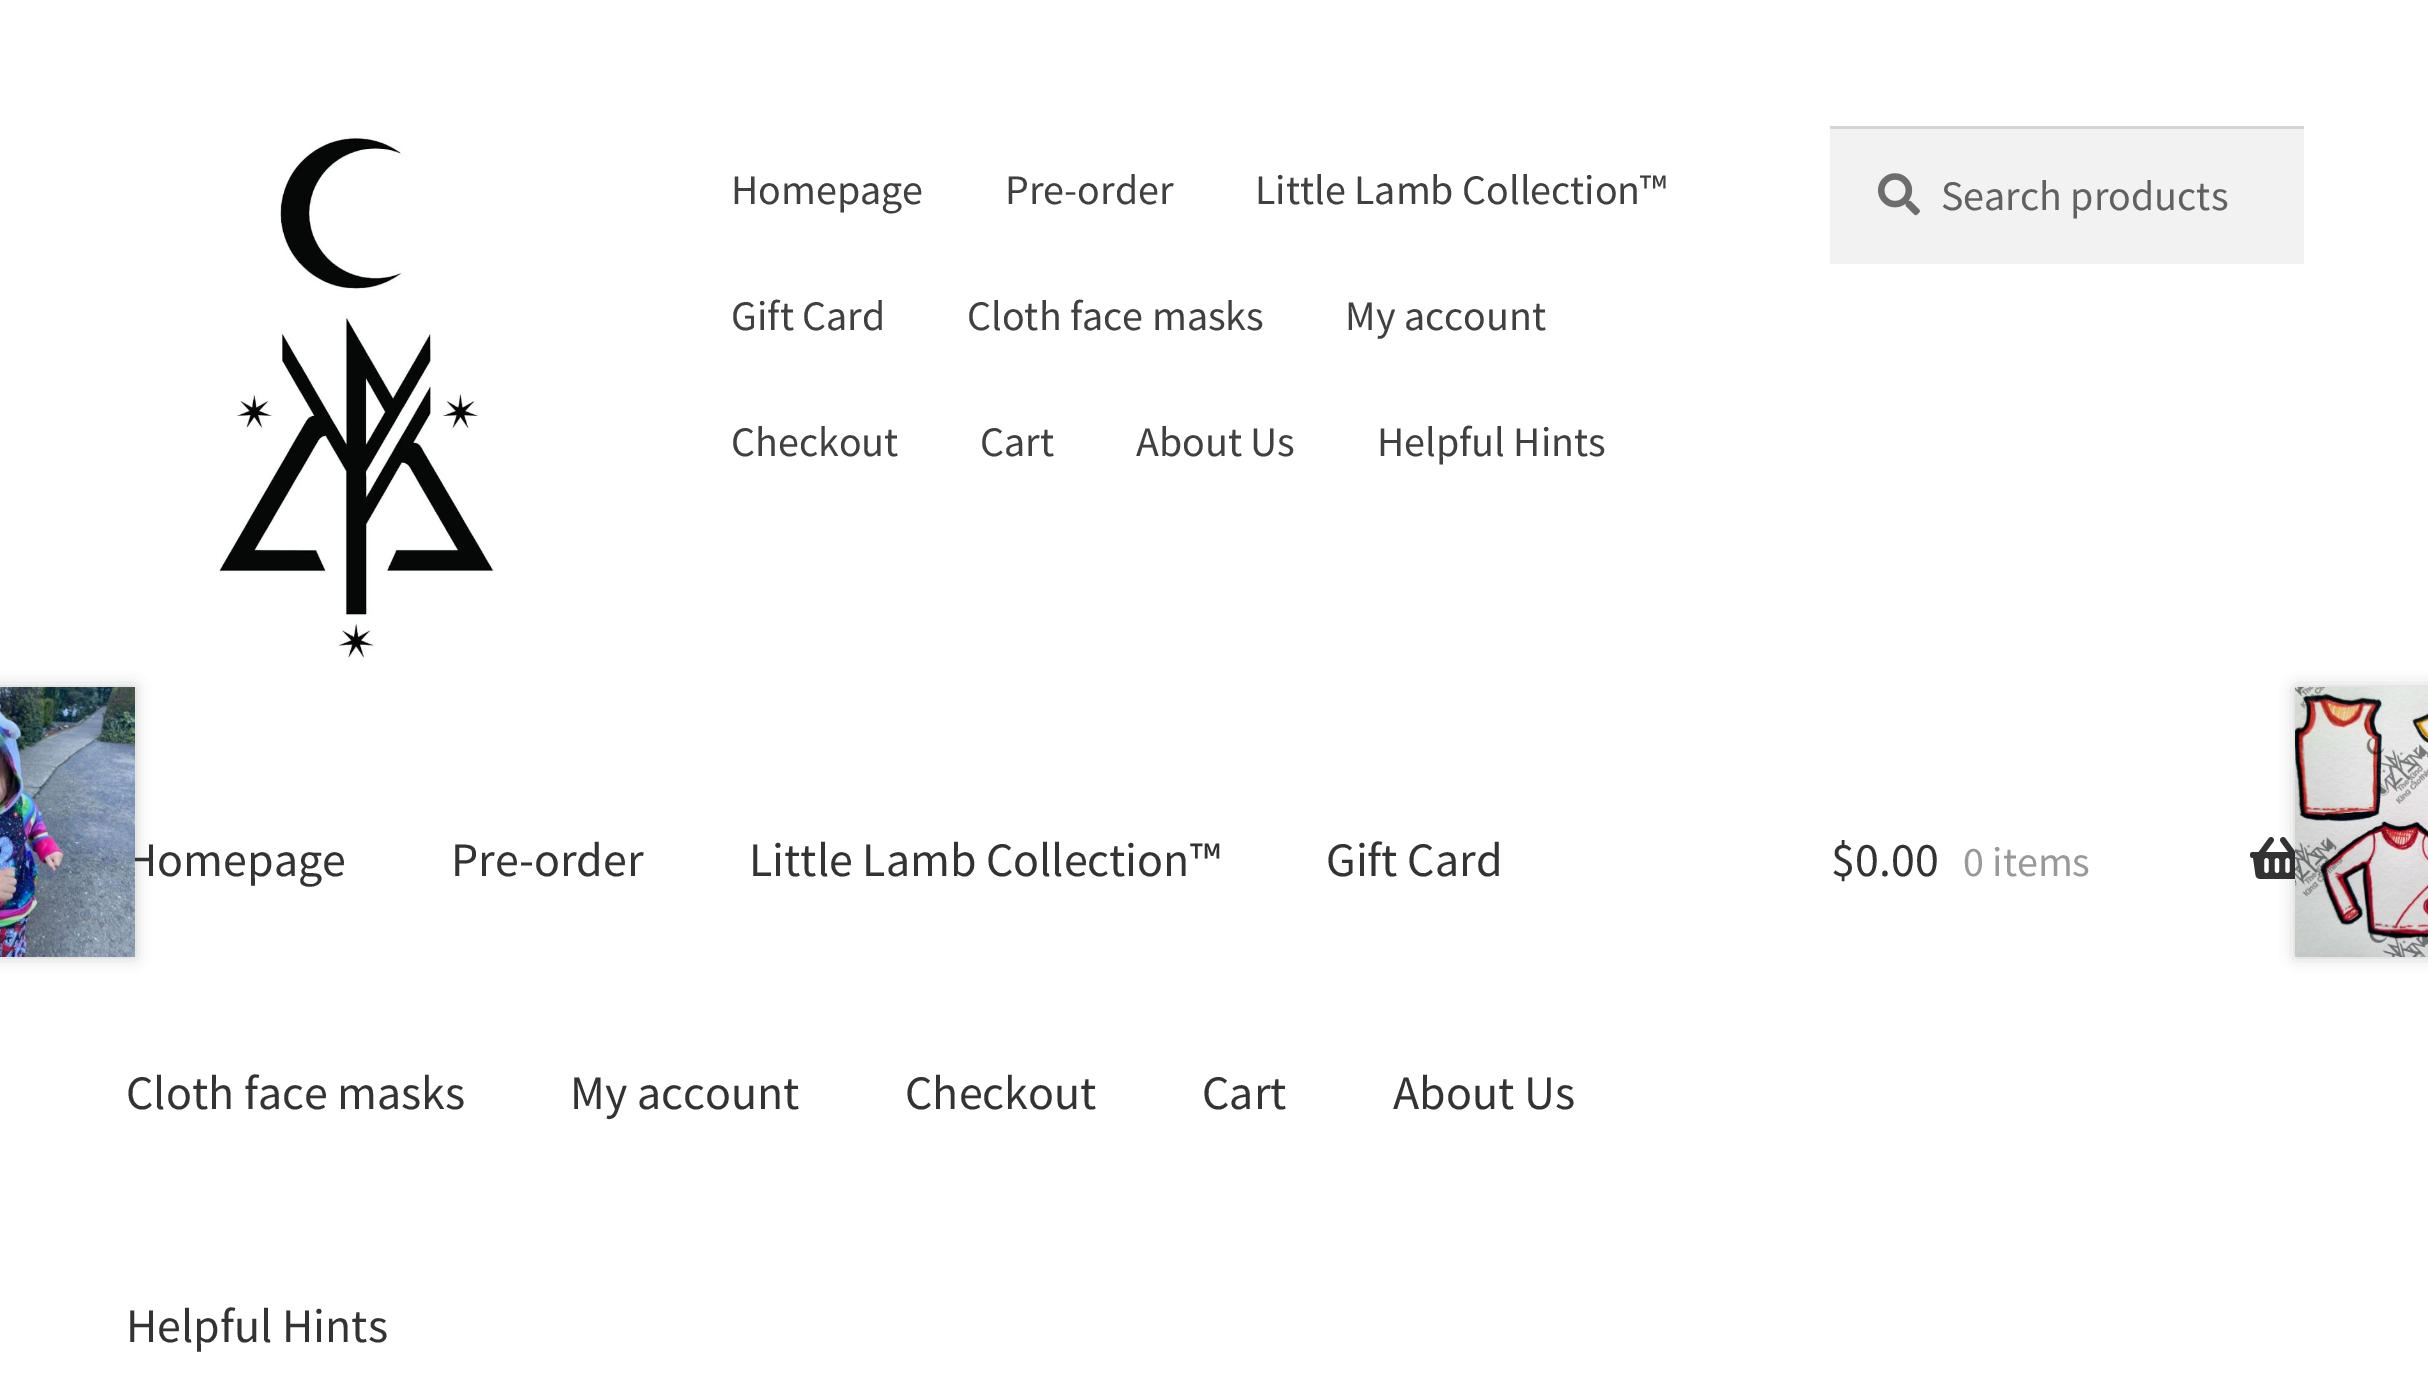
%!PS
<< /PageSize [2428 1374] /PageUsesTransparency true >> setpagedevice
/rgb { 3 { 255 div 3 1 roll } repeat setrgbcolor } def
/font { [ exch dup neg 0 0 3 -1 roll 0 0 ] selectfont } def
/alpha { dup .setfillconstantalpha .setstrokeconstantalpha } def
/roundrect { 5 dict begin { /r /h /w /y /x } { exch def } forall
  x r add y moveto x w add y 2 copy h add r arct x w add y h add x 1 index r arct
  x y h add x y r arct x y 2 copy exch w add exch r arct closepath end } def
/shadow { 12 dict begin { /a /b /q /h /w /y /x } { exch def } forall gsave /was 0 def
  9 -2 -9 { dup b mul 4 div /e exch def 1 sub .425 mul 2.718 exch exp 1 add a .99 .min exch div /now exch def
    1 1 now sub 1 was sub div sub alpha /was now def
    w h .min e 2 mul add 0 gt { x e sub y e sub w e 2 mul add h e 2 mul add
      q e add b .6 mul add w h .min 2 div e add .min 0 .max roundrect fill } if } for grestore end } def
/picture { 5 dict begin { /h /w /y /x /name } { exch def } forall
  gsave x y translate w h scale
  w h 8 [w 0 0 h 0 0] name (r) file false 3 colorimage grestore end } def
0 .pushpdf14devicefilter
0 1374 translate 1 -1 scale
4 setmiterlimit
255 255 255 rgb
0 0 2428 1374 rectfill
(img/1.rgb) 219 136 275 524 picture
242 242 242 rgb
1830 129 474 135 rectfill
(img/2.rgb) 1878 173 42 43 picture
212 212 212 rgb
1830 126 474 3 rectfill
(img/3.rgb) 2250 837 45 42 picture
0 0 0 rgb
-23 687 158 270 0 7.5 0.2 shadow
2295 687 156 270 0 7.5 0.2 shadow
(img/5.rgb) 2295 687 133 270 picture
/SourceSansPro-Regular 42 font
64 64 64 rgb
[
  [(Homepage) 731 204]
  [(Pre-order) 1005 204]
  [(Little Lamb Collection™) 1255 204]
  [(Gift Card) 731 330]
  [(Cloth face masks) 967 330]
  [(My account) 1345 330]
  [(Checkout) 731 456]
  [(Cart) 980 456]
  [(About Us) 1136 456]
  [(Helpful Hints) 1377 456]
] { aload pop moveto show } forall
97 97 97 rgb
1941 210 moveto (Search products) show
/SourceSansPro-Regular 48 font
51 51 51 rgb
[
  [(Homepage) 126 876]
  [(Pre-order) 451 876]
  [(Little Lamb Collection™) 749 876]
  [(Gift Card) 1326 876]
  [(Cloth face masks) 126 1109]
  [(My account) 570 1109]
  [(Checkout) 905 1109]
  [(Cart) 1202 1109]
  [(About Us) 1393 1109]
  [(Helpful Hints) 126 1342]
  [($0.00) 1831 876]
] { aload pop moveto show } forall
/SourceSansPro-Regular 42 font
153 153 153 rgb
1963 876 moveto (0 items) show
(img/4.rgb) 0 687 135 270 picture
.poppdf14devicefilter showpage
